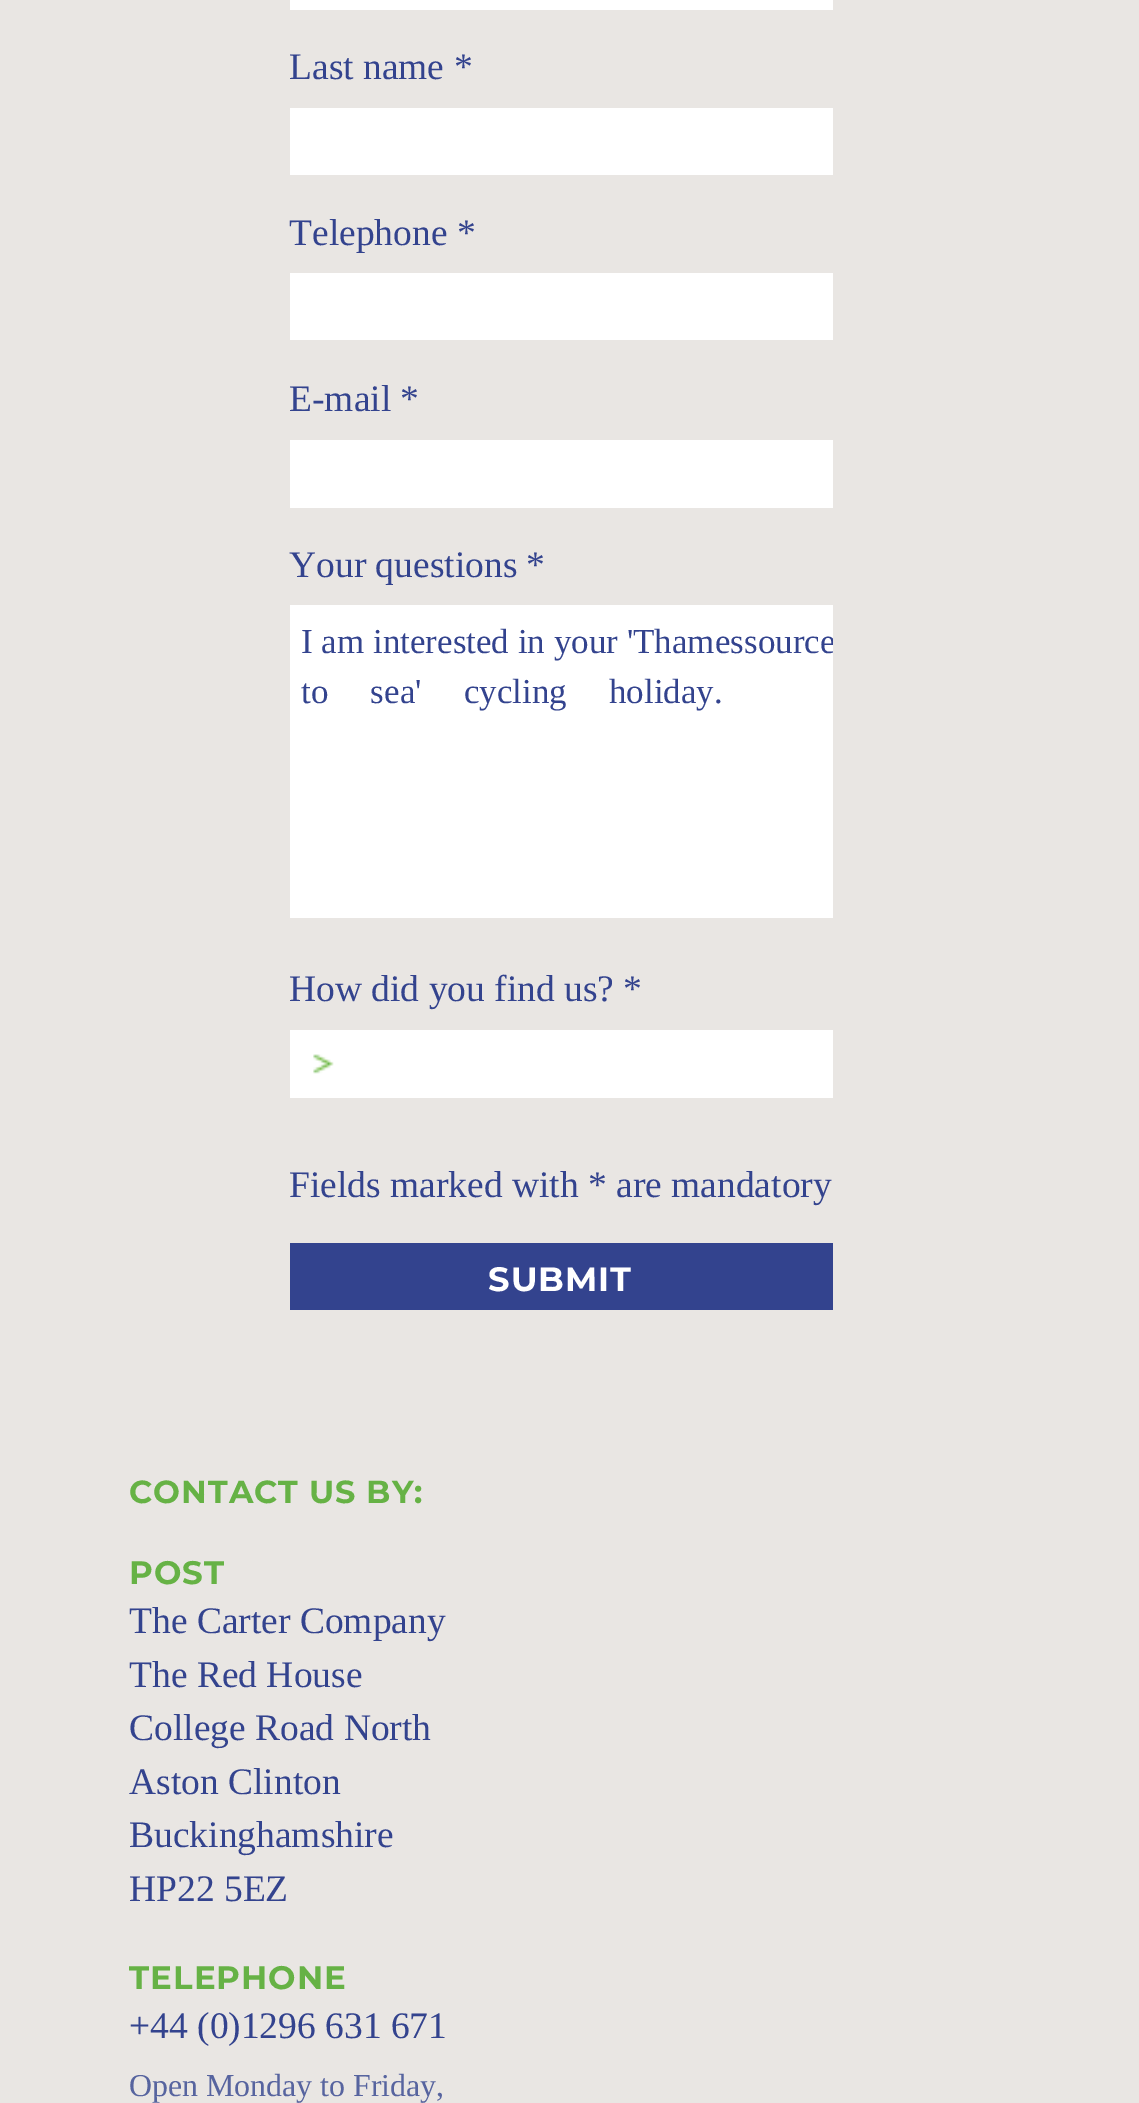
%!PS
<< /PageSize [1139 2103] >> setpagedevice
/rgb { 3 { 255 div 3 1 roll } repeat setrgbcolor } def
/font { [ exch dup neg 0 0 3 -1 roll 0 0 ] selectfont } def
/picture { 5 dict begin { /h /w /y /x /name } { exch def } forall
  gsave x y translate w h scale
  w h 8 [w 0 0 h 0 0] name (r) file false 3 colorimage grestore end } def
0 2103 translate 1 -1 scale
4 setmiterlimit
233 230 227 rgb
0 0 1139 2103 rectfill
[
  [290 0 543 10 255 255 255]
  [290 108 543 67 255 255 255]
  [290 273 543 67 255 255 255]
  [290 440 543 68 255 255 255]
  [290 605 543 313 255 255 255]
  [290 1030 543 68 255 255 255]
] { aload pop rgb rectfill } forall
(img/1.rgb) 313 1054 21 20 picture
51 67 142 rgb
290 1243 543 67 rectfill
/LiberationSerif-Regular 37.5 font
[
  [(Last name *) 289 79]
  [(Telephone *) 289 245]
  [(E-mail *) 289 411]
  [(Your questions *) 289 577]
] { aload pop moveto show } forall
/LiberationSerif-Regular 35 font
301 653 moveto (I am interested in your 'Thames) show
gsave
290 605 543 313 rectclip
744 653 moveto (source) show
grestore
301 703 moveto 33.5 0 32 (to sea' cycling holiday.) widthshow
/LiberationSerif-Regular 37.5 font
289 1001 moveto (How did you find us? *) show
289 1197 moveto (Fields marked with * are mandatory) show
/Montserrat-Bold 33.75 font
255 255 255 rgb
488 1291 moveto 1 0 (SUBMIT) ashow
/Montserrat-Bold 31.9 font
102 178 69 rgb
129 1503 moveto 1 0 (CONTACT US BY:) ashow
/Montserrat-Bold 32.5 font
129 1584 moveto 1 0 (POST) ashow
/LiberationSerif-Regular 37.5 font
51 67 142 rgb
[
  [(The Carter Company) 129 1633]
  [(The Red House) 129 1687]
  [(College Road North) 129 1740]
  [(Aston Clinton) 129 1794]
  [(Buckinghamshire) 129 1847]
  [(HP22 5EZ) 129 1901]
] { aload pop moveto show } forall
/Montserrat-Bold 32.5 font
102 178 69 rgb
129 1989 moveto 1 0 (TELEPHONE) ashow
/LiberationSerif-Regular 37.5 font
51 67 142 rgb
129 2038 moveto (+44 \(0\)1296 631 671) show
/LiberationSerif-Regular 31.9 font
87 100 159 rgb
129 2096 moveto (Open Monday to Friday,) show
showpage
